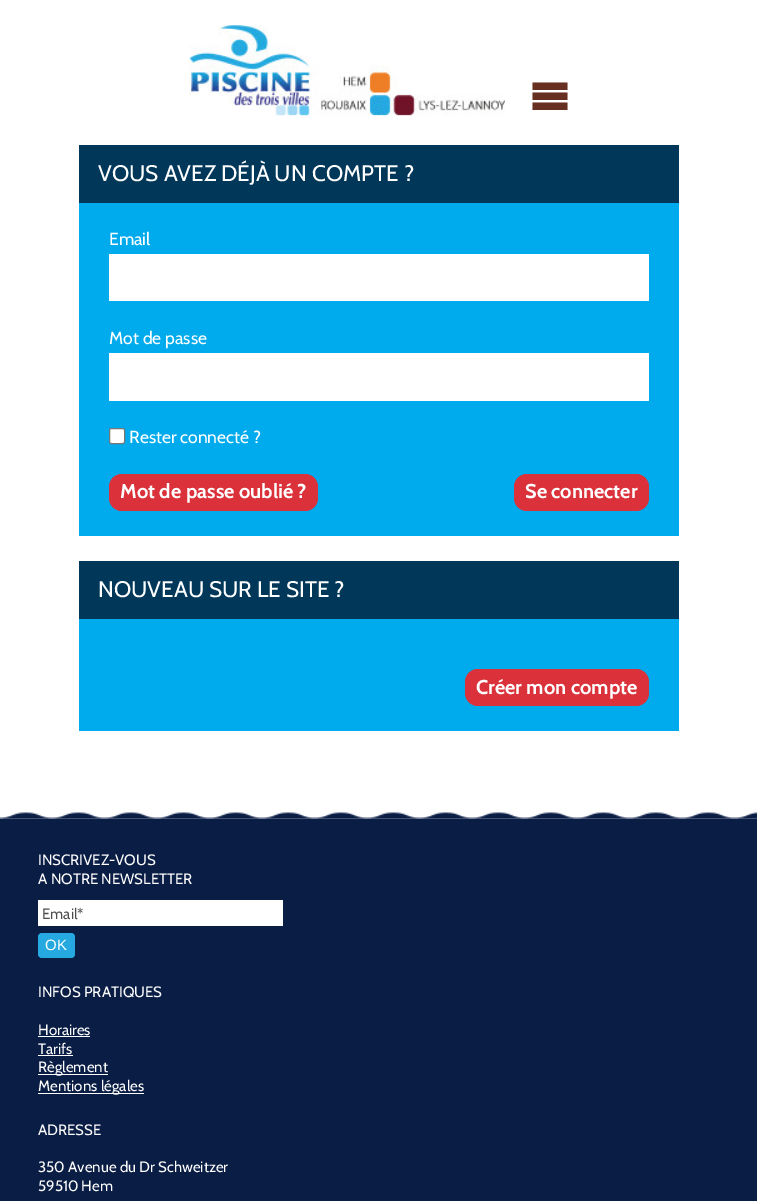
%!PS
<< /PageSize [757 1201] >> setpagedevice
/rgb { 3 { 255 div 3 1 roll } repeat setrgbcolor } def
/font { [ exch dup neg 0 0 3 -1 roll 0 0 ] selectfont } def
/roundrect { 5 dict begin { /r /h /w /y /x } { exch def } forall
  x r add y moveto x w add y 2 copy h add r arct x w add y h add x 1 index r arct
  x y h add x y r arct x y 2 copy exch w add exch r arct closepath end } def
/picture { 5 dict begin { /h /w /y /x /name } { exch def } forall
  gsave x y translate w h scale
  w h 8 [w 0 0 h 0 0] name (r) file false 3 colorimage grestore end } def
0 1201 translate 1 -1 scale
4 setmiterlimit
255 255 255 rgb
0 0 757 1201 rectfill
(img/1.rgb) 188 25 317 91 picture
103 47 33 rgb
532.5 82.5 moveto 567.5 82.5 lineto 567.5 90 lineto 532.5 90 lineto closepath 532.5 92.5 moveto 567.5 92.5 lineto 567.5 100 lineto 532.5 100 lineto closepath 532.5 102.5 moveto 567.5 102.5 lineto 567.5 110 lineto 532.5 110 lineto closepath fill
[
  [79 203 600 333 0 171 237]
  [79 145 600 58 1 55 89]
  [109 254 540 47 255 255 255]
  [109 353 540 48 255 255 255]
] { aload pop rgb rectfill } forall
109.5 428.5 15 15 2 roundrect gsave fill grestore
118 118 118 rgb
stroke
219 49 58 rgb
109 474 209 37 13 roundrect fill
514 474 135 37 13 roundrect fill
0 171 237 rgb
79 619 600 112 rectfill
1 55 89 rgb
79 561 600 58 rectfill
219 49 58 rgb
465 669 184 37 13 roundrect fill
(img/2.rgb) 0 812 757 7 picture
10 29 69 rgb
0 819 757 382 rectfill
255 255 255 rgb
38 900 245 26 rectfill
37 169 224 rgb
38 933 37 25 4 roundrect fill
[
  [38 1036 52 1 255 255 255]
  [38 1055 35 1 255 255 255]
  [38 1074 70 1 255 255 255]
  [38 1093 106 1 255 255 255]
] { aload pop rgb rectfill } forall
/Cabin-Regular 22.5 font
98 181 moveto (VOUS AVEZ DÉJÀ UN COMPTE ?) show
/Cabin-Regular 17.5 font
[
  [(Email) 109 245]
  [(Mot de passe) 109 344]
  [(Rester connecté ?) 129 443]
] { aload pop moveto show } forall
/Cabin-Bold 20 font
120 498 moveto (Mot de passe oublié ?) show
525 498 moveto (Se connecter) show
/Cabin-Regular 22.5 font
98 597 moveto (NOUVEAU SUR LE SITE ?) show
/Cabin-Bold 20 font
476 694 moveto (Créer mon compte) show
/Cabin-Regular 15 font
38 865 moveto (INSCRIVEZ-VOUS) show
38 884 moveto (A NOTRE NEWSLETTER) show
77 77 77 rgb
42 919 moveto (Email*) show
/LiberationSans-Regular 15 font
255 255 255 rgb
45 950 moveto (OK) show
/Cabin-Regular 15 font
[
  [(INFOS PRATIQUES) 38 997]
  [(Horaires) 38 1035]
  [(Tarifs) 38 1054]
  [(Règlement) 38 1072]
  [(Mentions légales) 38 1091]
  [(ADRESSE) 38 1135]
  [(350 Avenue du Dr Schweitzer) 38 1172]
  [(59510 Hem) 38 1191]
] { aload pop moveto show } forall
showpage
